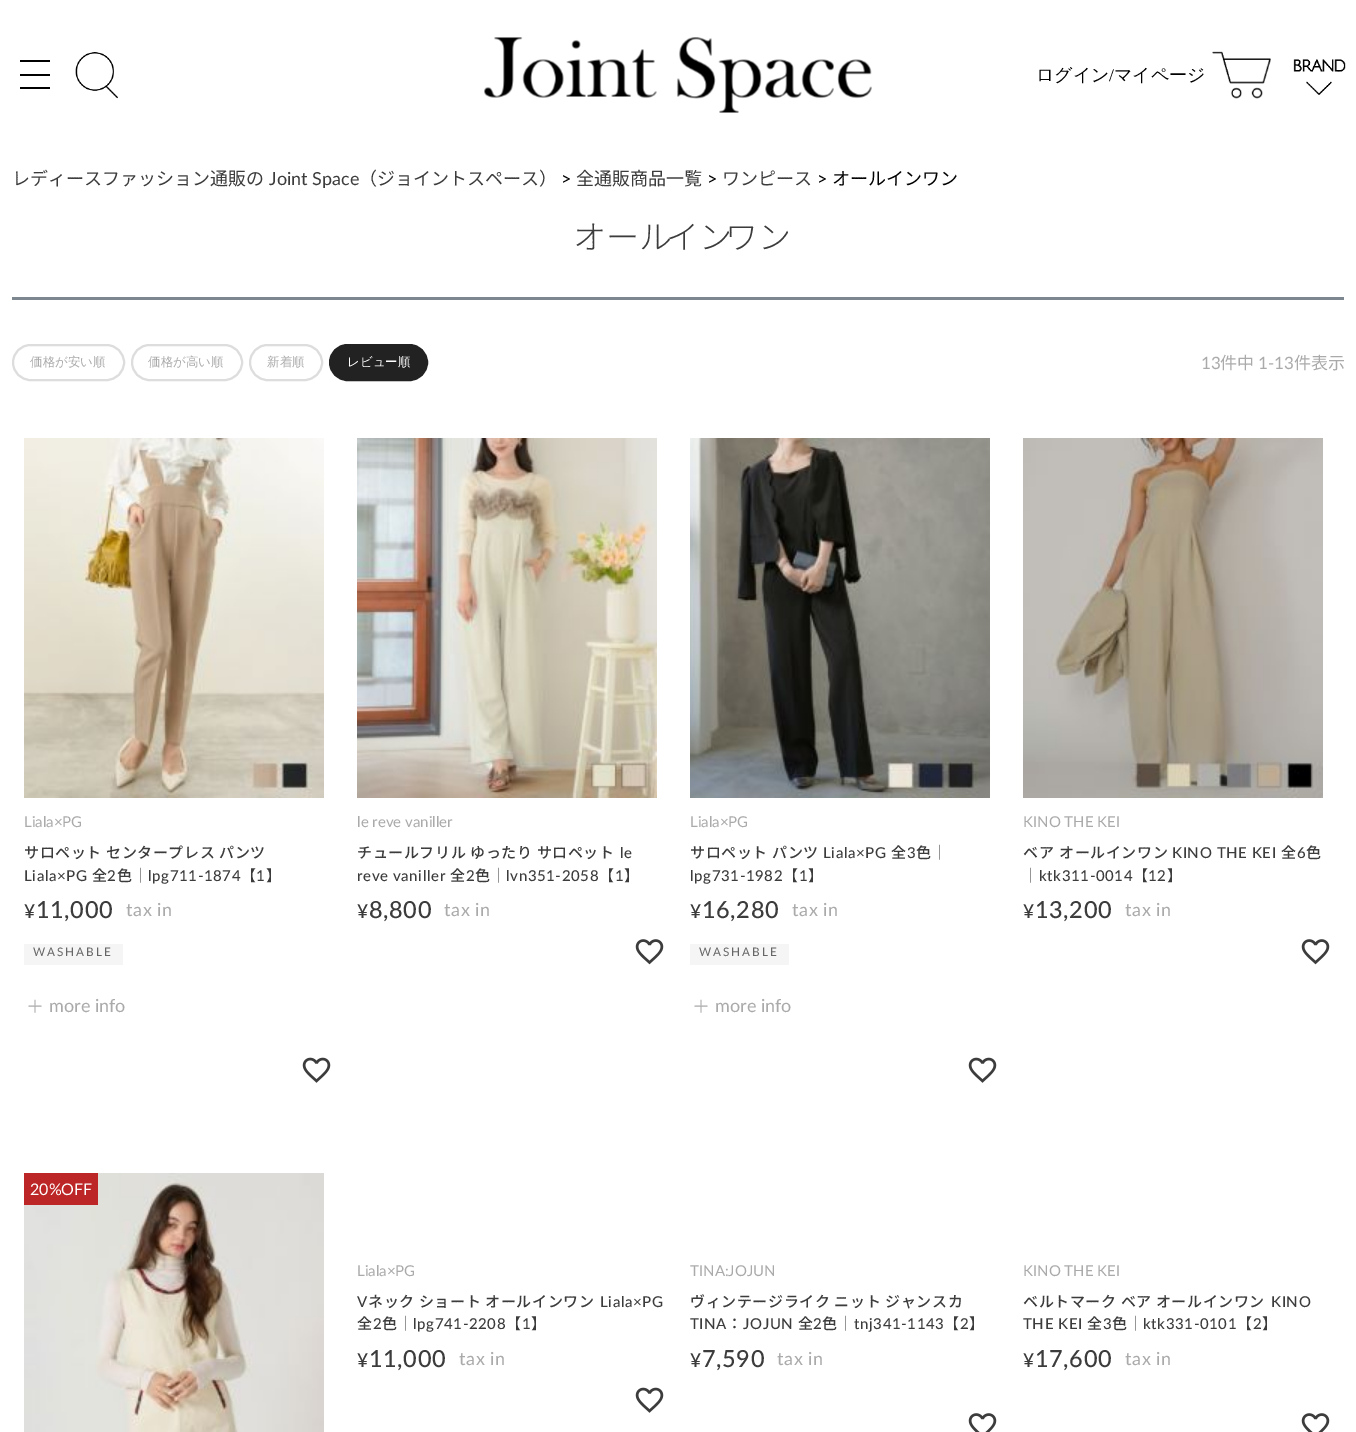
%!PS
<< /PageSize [1356 1432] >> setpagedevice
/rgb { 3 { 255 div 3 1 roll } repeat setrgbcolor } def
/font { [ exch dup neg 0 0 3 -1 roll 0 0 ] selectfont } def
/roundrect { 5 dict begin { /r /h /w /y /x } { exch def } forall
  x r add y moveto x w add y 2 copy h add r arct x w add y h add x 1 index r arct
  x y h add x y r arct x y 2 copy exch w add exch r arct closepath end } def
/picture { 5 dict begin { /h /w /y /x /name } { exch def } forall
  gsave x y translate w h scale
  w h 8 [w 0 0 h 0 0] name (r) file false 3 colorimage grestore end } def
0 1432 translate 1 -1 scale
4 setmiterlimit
255 255 255 rgb
0 0 1356 1432 rectfill
[
  [20 60 30 2 0 0 0]
  [20 74 30 2 0 0 0]
  [20 87 30 2 0 0 0]
] { aload pop rgb rectfill } forall
(img/1.rgb) 75 52 43 47 picture
(img/2.rgb) 484 37 388 76 picture
(img/3.rgb) 1212 51 59 48 picture
(img/4.rgb) 1293 59 53 36 picture
124 135 144 rgb
12 297 1332 3 rectfill
221 221 221 rgb
2 setlinewidth
13 345 111 35 17.5 roundrect stroke
132 345 110 35 17.5 roundrect stroke
250 345 72 35 17.5 roundrect stroke
34 34 34 rgb
330 345 97 35 17.5 roundrect gsave fill grestore
stroke
(img/5.rgb) 24 438 300 360 picture
245 245 245 rgb
24 944 99 21 rectfill
(img/6.rgb) 302 1057 29 26 picture
(img/7.rgb) 357 438 300 360 picture
(img/8.rgb) 635 939 29 26 picture
(img/9.rgb) 690 438 300 360 picture
690 944 99 21 rectfill
(img/6.rgb) 968 1057 29 26 picture
(img/10.rgb) 1023 438 300 360 picture
(img/8.rgb) 1301 939 29 26 picture
(img/11.rgb) 24 1173 300 259 picture
189 38 38 rgb
24 1173 74 32 rectfill
(img/6.rgb) 635 1387 29 26 picture
(img/12.rgb) 968 1413 29 19 picture
(img/12.rgb) 1301 1413 29 19 picture
/WenQuanYiZenHei-Medium 18 font
0 0 0 rgb
1036 81 moveto (ログイン) show
/LiberationSerif-Regular 18 font
1109 81 moveto (/) show
/WenQuanYiZenHei-Medium 18 font
1114 81 moveto (マイページ) show
/NotoSansJP-Regular 18 font
60 60 60 rgb
12 185 moveto (レディースファッション通販の) show
/Lato-Regular 18 font
269 185 moveto (Joint Space) show
/NotoSansJP-Regular 18 font
359 185 moveto (（ジョイントスペース）) show
/Lato-Regular 18 font
0 0 0 rgb
561 185 moveto (>) show
/NotoSansJP-Regular 18 font
60 60 60 rgb
576 185 moveto (全通販商品一覧) show
/Lato-Regular 18 font
0 0 0 rgb
707 185 moveto (>) show
/NotoSansJP-Regular 18 font
60 60 60 rgb
722 185 moveto (ワンピース) show
/Lato-Regular 18 font
0 0 0 rgb
817 185 moveto (>) show
/NotoSansJP-Regular 18 font
832 185 moveto (オールインワン) show
/NotoSansJP-Light 33 font
60 60 60 rgb
573 249 moveto (オール) show
666 249 moveto (イン) show
725 249 moveto (ワン) show
/WenQuanYiZenHei-Medium 12.5 font
170 170 170 rgb
[
  [(価格が安い順) 30 366]
  [(価格が高い順) 148 366]
  [(新着順) 267 366]
] { aload pop moveto show } forall
255 255 255 rgb
347 366 moveto (レビュー順) show
/Lato-Regular 17 font
170 170 170 rgb
1201 369 moveto (13) show
/NotoSansJP-Regular 17 font
1220 369 moveto (件中) show
/Lato-Regular 17 font
1258 369 moveto (1-13) show
/NotoSansJP-Regular 17 font
1294 369 moveto (件表示) show
/Lato-Regular 15 font
24 827 moveto (Liala×PG) show
/NotoSansJP-Medium 15 font
60 60 60 rgb
24 858 moveto 0.6 0 (サロペット センタープレス パンツ) ashow
/Lato-Medium 15 font
24 881 moveto 0.6 0 (Liala×PG) ashow
/NotoSansJP-Medium 15 font
92 881 moveto 0.6 0 (全) ashow
/Lato-Medium 15 font
107 881 moveto 0.6 0 (2) ashow
/NotoSansJP-Medium 15 font
117 881 moveto 0.6 0 (色｜) ashow
/Lato-Medium 15 font
148 881 moveto 0.6 0 (lpg711-1874) ashow
/NotoSansJP-Medium 15 font
241 881 moveto 0.6 0 (【) ashow
/Lato-Medium 15 font
256 881 moveto 0.6 0 (1) ashow
/NotoSansJP-Medium 15 font
266 881 moveto 0.6 0 (】) ashow
/Lato-Medium 19 font
24 918 moveto 0.6 0 (¥) ashow
/Lato-Medium 23.5 font
36 918 moveto 0.6 0 (11,000) ashow
/Lato-Regular 18 font
170 170 170 rgb
126 916 moveto 0.6 0 (tax in) ashow
/Lato-Regular 11.75 font
102 102 102 rgb
33 956 moveto 2 0 (WASHABLE) ashow
/NotoSansJP-Regular 18 font
170 170 170 rgb
26 1013 moveto (＋) show
/Lato-Regular 18 font
49 1012 moveto (more info) show
/Lato-Regular 15 font
357 827 moveto (le reve vaniller) show
/NotoSansJP-Medium 15 font
60 60 60 rgb
357 858 moveto 0.6 0 (チュールフリル ゆったり サロペット) ashow
/Lato-Medium 15 font
620 858 moveto 0.6 0 (le) ashow
357 881 moveto 0.6 0 (reve vaniller) ashow
/NotoSansJP-Medium 15 font
450 881 moveto 0.6 0 (全) ashow
/Lato-Medium 15 font
466 881 moveto 0.6 0 (2) ashow
/NotoSansJP-Medium 15 font
475 881 moveto 0.6 0 (色｜) ashow
/Lato-Medium 15 font
506 881 moveto 0.6 0 (lvn351-2058) ashow
/NotoSansJP-Medium 15 font
599 881 moveto 0.6 0 (【) ashow
/Lato-Medium 15 font
615 881 moveto 0.6 0 (1) ashow
/NotoSansJP-Medium 15 font
624 881 moveto 0.6 0 (】) ashow
/Lato-Medium 19 font
357 918 moveto 0.6 0 (¥) ashow
/Lato-Medium 23.5 font
369 918 moveto 0.6 0 (8,800) ashow
/Lato-Regular 18 font
170 170 170 rgb
444 916 moveto 0.6 0 (tax in) ashow
/Lato-Regular 15 font
690 827 moveto (Liala×PG) show
/NotoSansJP-Medium 15 font
60 60 60 rgb
690 858 moveto 0.6 0 (サロペット パンツ) ashow
/Lato-Medium 15 font
823 858 moveto 0.6 0 (Liala×PG) ashow
/NotoSansJP-Medium 15 font
891 858 moveto 0.6 0 (全) ashow
/Lato-Medium 15 font
907 858 moveto 0.6 0 (3) ashow
/NotoSansJP-Medium 15 font
916 858 moveto 0.6 0 (色｜) ashow
/Lato-Medium 15 font
690 881 moveto 0.6 0 (lpg731-1982) ashow
/NotoSansJP-Medium 15 font
783 881 moveto 0.6 0 (【) ashow
/Lato-Medium 15 font
799 881 moveto 0.6 0 (1) ashow
/NotoSansJP-Medium 15 font
808 881 moveto 0.6 0 (】) ashow
/Lato-Medium 19 font
690 918 moveto 0.6 0 (¥) ashow
/Lato-Medium 23.5 font
702 918 moveto 0.6 0 (16,280) ashow
/Lato-Regular 18 font
170 170 170 rgb
792 916 moveto 0.6 0 (tax in) ashow
/Lato-Regular 11.75 font
102 102 102 rgb
699 956 moveto 2 0 (WASHABLE) ashow
/NotoSansJP-Regular 18 font
170 170 170 rgb
692 1013 moveto (＋) show
/Lato-Regular 18 font
715 1012 moveto (more info) show
/Lato-Regular 15 font
1023 827 moveto (KINO THE KEI) show
/NotoSansJP-Medium 15 font
60 60 60 rgb
1023 858 moveto 0.6 0 (ベア) ashow
1059 858 moveto 0.6 0 (オールインワン) ashow
/Lato-Medium 15 font
1172 858 moveto 0.6 0 (KINO THE KEI) ashow
/NotoSansJP-Medium 15 font
1281 858 moveto 0.6 0 (全) ashow
/Lato-Medium 15 font
1297 858 moveto 0.6 0 (6) ashow
/NotoSansJP-Medium 15 font
1306 858 moveto 0.6 0 (色) ashow
1023 881 moveto 0.6 0 (｜) ashow
/Lato-Medium 15 font
1039 881 moveto 0.6 0 (ktk311-0014) ashow
/NotoSansJP-Medium 15 font
1133 881 moveto 0.6 0 (【) ashow
/Lato-Medium 15 font
1148 881 moveto 0.6 0 (12) ashow
/NotoSansJP-Medium 15 font
1167 881 moveto 0.6 0 (】) ashow
/Lato-Medium 19 font
1023 918 moveto 0.6 0 (¥) ashow
/Lato-Medium 23.5 font
1035 918 moveto 0.6 0 (13,200) ashow
/Lato-Regular 18 font
170 170 170 rgb
1125 916 moveto 0.6 0 (tax in) ashow
/Lato-Regular 16 font
255 255 255 rgb
30 1195 moveto (20%OFF) show
/Lato-Regular 15 font
170 170 170 rgb
357 1276 moveto (Liala×PG) show
/Lato-Medium 15 font
60 60 60 rgb
357 1307 moveto 0.6 0 (V) ashow
/NotoSansJP-Medium 15 font
368 1307 moveto 0.6 0 (ネック ショート オールインワン) ashow
/Lato-Medium 15 font
600 1307 moveto 0.6 0 (Liala×PG) ashow
/NotoSansJP-Medium 15 font
357 1329 moveto 0.6 0 (全) ashow
/Lato-Medium 15 font
373 1329 moveto 0.6 0 (2) ashow
/NotoSansJP-Medium 15 font
382 1329 moveto 0.6 0 (色｜) ashow
/Lato-Medium 15 font
413 1329 moveto 0.6 0 (lpg741-2208) ashow
/NotoSansJP-Medium 15 font
506 1329 moveto 0.6 0 (【) ashow
/Lato-Medium 15 font
522 1329 moveto 0.6 0 (1) ashow
/NotoSansJP-Medium 15 font
531 1329 moveto 0.6 0 (】) ashow
/Lato-Medium 19 font
357 1367 moveto 0.6 0 (¥) ashow
/Lato-Medium 23.5 font
369 1367 moveto 0.6 0 (11,000) ashow
/Lato-Regular 18 font
170 170 170 rgb
459 1365 moveto 0.6 0 (tax in) ashow
/Lato-Regular 15 font
690 1276 moveto (TINA:JOJUN) show
/NotoSansJP-Medium 15 font
60 60 60 rgb
690 1307 moveto 0.6 0 (ヴィンテージライク ニット ジャンスカ) ashow
/Lato-Medium 15 font
690 1329 moveto 0.6 0 (TINA) ashow
/NotoSansJP-Medium 15 font
727 1329 moveto 0.6 0 (：) ashow
/Lato-Medium 15 font
743 1329 moveto 0.6 0 (JOJUN) ashow
/NotoSansJP-Medium 15 font
798 1329 moveto 0.6 0 (全) ashow
/Lato-Medium 15 font
813 1329 moveto 0.6 0 (2) ashow
/NotoSansJP-Medium 15 font
822 1329 moveto 0.6 0 (色｜) ashow
/Lato-Medium 15 font
854 1329 moveto 0.6 0 (tnj341-1143) ashow
/NotoSansJP-Medium 15 font
944 1329 moveto 0.6 0 (【) ashow
/Lato-Medium 15 font
960 1329 moveto 0.6 0 (2) ashow
/NotoSansJP-Medium 15 font
969 1329 moveto 0.6 0 (】) ashow
/Lato-Medium 19 font
690 1367 moveto 0.6 0 (¥) ashow
/Lato-Medium 23.5 font
702 1367 moveto 0.6 0 (7,590) ashow
/Lato-Regular 18 font
170 170 170 rgb
777 1365 moveto 0.6 0 (tax in) ashow
/Lato-Regular 15 font
1023 1276 moveto (KINO THE KEI) show
/NotoSansJP-Medium 15 font
60 60 60 rgb
1023 1307 moveto 0.6 0 (ベルトマーク ベア オールインワン) ashow
/Lato-Medium 15 font
1271 1307 moveto 0.6 0 (KINO) ashow
1023 1329 moveto 0.6 0 (THE KEI) ashow
/NotoSansJP-Medium 15 font
1087 1329 moveto 0.6 0 (全) ashow
/Lato-Medium 15 font
1103 1329 moveto 0.6 0 (3) ashow
/NotoSansJP-Medium 15 font
1112 1329 moveto 0.6 0 (色｜) ashow
/Lato-Medium 15 font
1143 1329 moveto 0.6 0 (ktk331-0101) ashow
/NotoSansJP-Medium 15 font
1237 1329 moveto 0.6 0 (【) ashow
/Lato-Medium 15 font
1253 1329 moveto 0.6 0 (2) ashow
/NotoSansJP-Medium 15 font
1262 1329 moveto 0.6 0 (】) ashow
/Lato-Medium 19 font
1023 1367 moveto 0.6 0 (¥) ashow
/Lato-Medium 23.5 font
1035 1367 moveto 0.6 0 (17,600) ashow
/Lato-Regular 18 font
170 170 170 rgb
1125 1365 moveto 0.6 0 (tax in) ashow
showpage
